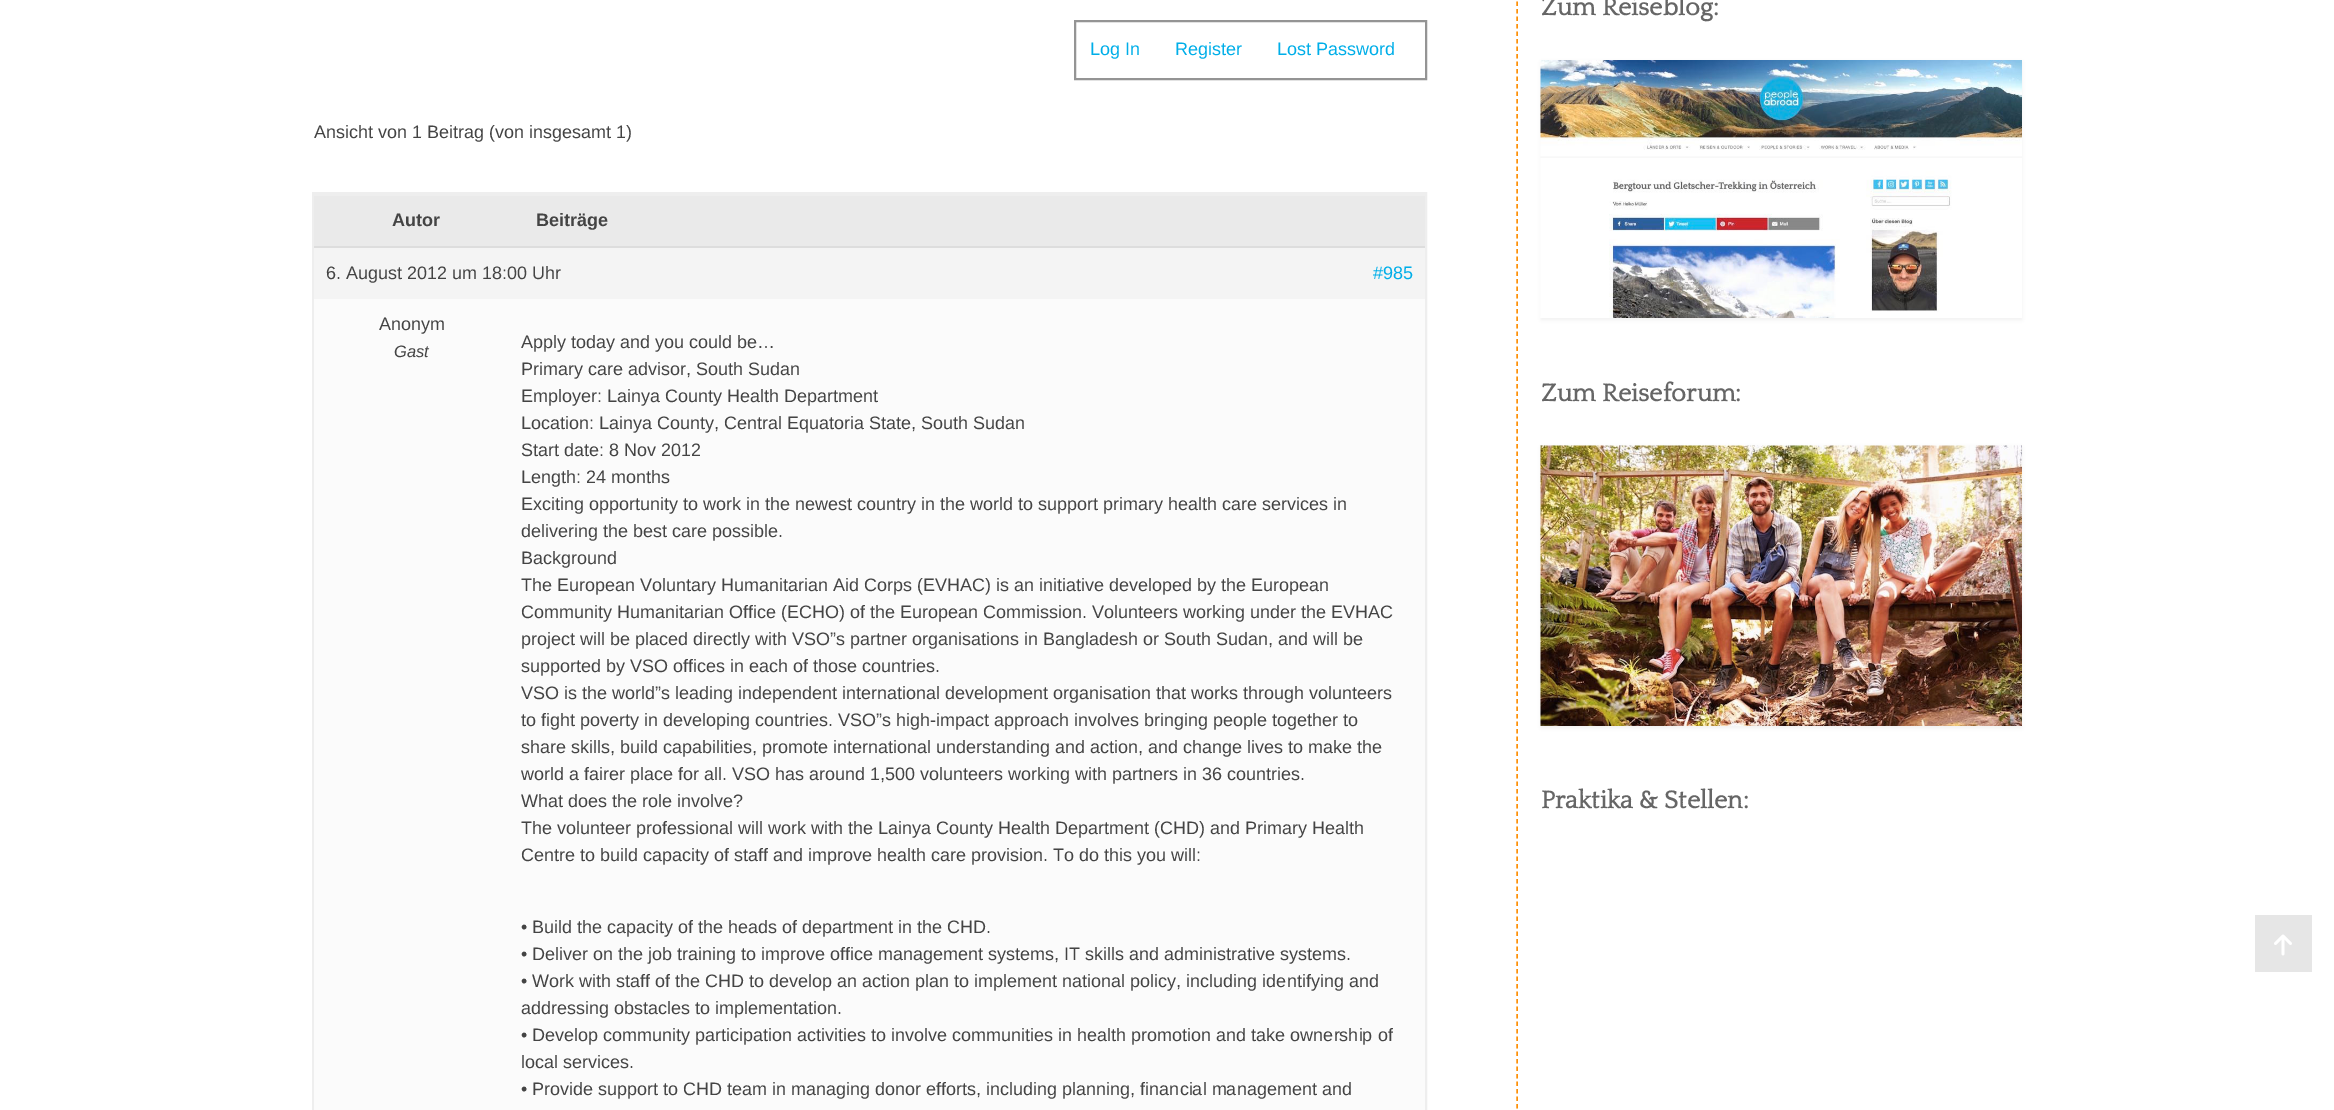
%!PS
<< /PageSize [2334 1110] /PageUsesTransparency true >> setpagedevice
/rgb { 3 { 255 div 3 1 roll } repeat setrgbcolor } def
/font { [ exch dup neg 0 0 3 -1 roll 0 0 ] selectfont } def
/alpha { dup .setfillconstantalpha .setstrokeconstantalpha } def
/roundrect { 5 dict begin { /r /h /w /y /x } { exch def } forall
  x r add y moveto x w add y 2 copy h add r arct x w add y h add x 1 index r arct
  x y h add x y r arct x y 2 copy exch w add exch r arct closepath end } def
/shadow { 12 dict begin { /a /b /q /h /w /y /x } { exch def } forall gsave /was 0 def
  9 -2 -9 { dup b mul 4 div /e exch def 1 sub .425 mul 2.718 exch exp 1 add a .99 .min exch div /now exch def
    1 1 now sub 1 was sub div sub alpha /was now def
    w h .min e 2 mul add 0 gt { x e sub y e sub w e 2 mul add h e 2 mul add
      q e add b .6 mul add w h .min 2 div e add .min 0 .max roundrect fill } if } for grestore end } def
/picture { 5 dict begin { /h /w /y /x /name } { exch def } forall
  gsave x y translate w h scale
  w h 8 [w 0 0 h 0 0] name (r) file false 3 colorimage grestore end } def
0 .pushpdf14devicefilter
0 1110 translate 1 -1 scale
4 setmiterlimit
255 255 255 rgb
0 0 2334 1110 rectfill
253 144 9 rgb
1.5 setlinewidth
[4.5 3] 0 setdash
1517 -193.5 moveto 1517 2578.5 lineto stroke
148 148 148 rgb
2 setlinewidth
[] 0 setdash
1075 21 351 58 rectstroke
238 238 238 rgb
313 193 1113 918 rectstroke
[
  [314 196 1111 50 234 234 234]
  [314 194 1111 2 238 238 238]
  [314 248 1111 51 244 244 244]
  [314 246 1111 2 221 221 221]
  [314 299 1111 811 251 251 251]
] { aload pop rgb rectfill } forall
0 0 0 rgb
1541 62 481 258 0 2 0.06 shadow
(img/1.rgb) 1540 60 482 258 picture
1541 447 481 281 0 2 0.06 shadow
(img/2.rgb) 1540 445 482 281 picture
230 230 230 rgb
2255 915 57 57 rectfill
(img/3.rgb) 2274 934 18 22 picture
/LiberationSans-Regular 18 font
0 174 232 rgb
[
  [(Log In) 1090 55]
  [(Register) 1175 55]
  [(Lost Password) 1277 55]
] { aload pop moveto show } forall
68 68 68 rgb
314 138 moveto (Ansicht von 1 Beitrag \(von insgesamt 1\)) show
/LiberationSans-Bold 18 font
392 226 moveto (Autor) show
536 226 moveto (Beiträge) show
/LiberationSans-Regular 18 font
326 279 moveto (6. August 2012 um 18:00 Uhr) show
0 174 232 rgb
1373 279 moveto (#985) show
68 68 68 rgb
379 330 moveto (Anonym) show
/LiberationSans-Italic 16.5 font
394 357 moveto (Gast) show
/LiberationSans-Regular 18 font
[
  [(Apply today and you could be…) 521 348]
  [(Primary care advisor, South Sudan) 521 375]
  [(Employer: Lainya County Health Department) 521 402]
  [(Location: Lainya County, Central Equatoria State, South Sudan) 521 429]
  [(Start date: 8 Nov 2012) 521 456]
  [(Length: 24 months) 521 483]
  [(Exciting opportunity to work in the newest country in the world to support primary health care services in) 521 510]
  [(delivering the best care possible.) 521 537]
  [(Background) 521 564]
  [(The European Voluntary Humanitarian Aid Corps \(EVHAC\) is an initiative developed by the European) 521 591]
  [(Community Humanitarian Office \(ECHO\) of the European Commission. Volunteers working under the EVHAC) 521 618]
  [(project will be placed directly with VSO”s partner organisations in Bangladesh or South Sudan, and will be) 521 645]
  [(supported by VSO offices in each of those countries.) 521 672]
  [(VSO is the world”s leading independent international development organisation that works through volunteers) 521 699]
  [(to fight poverty in developing countries. VSO”s high-impact approach involves bringing people together to) 521 726]
  [(share skills, build capabilities, promote international understanding and action, and change lives to make the) 521 753]
  [(world a fairer place for all. VSO has around 1,500 volunteers working with partners in 36 countries.) 521 780]
  [(What does the role involve?) 521 807]
  [(The volunteer professional will work with the Lainya County Health Department \(CHD\) and Primary Health) 521 834]
  [(Centre to build capacity of staff and improve health care provision. To do this you will:) 521 861]
  [(• Build the capacity of the heads of department in the CHD.) 521 933]
  [(• Deliver on the job training to improve office management systems, IT skills and administrative systems.) 521 960]
  [(• Work with staff of the CHD to develop an action plan to implement national policy, including identifying and) 521 987]
  [(addressing obstacles to implementation.) 521 1014]
  [(• Develop community participation activities to involve communities in health promotion and take ownership of) 521 1041]
  [(local services.) 521 1068]
  [(• Provide support to CHD team in managing donor efforts, including planning, financial management and) 521 1095]
] { aload pop moveto show } forall
/Quattrocento-Bold 25.5 font
102 102 102 rgb
[
  [(Zum Reiseblog:) 1541 15]
  [(Zum Reiseforum:) 1541 401]
  [(Praktika & Stellen:) 1541 808]
] { aload pop moveto show } forall
.poppdf14devicefilter showpage
